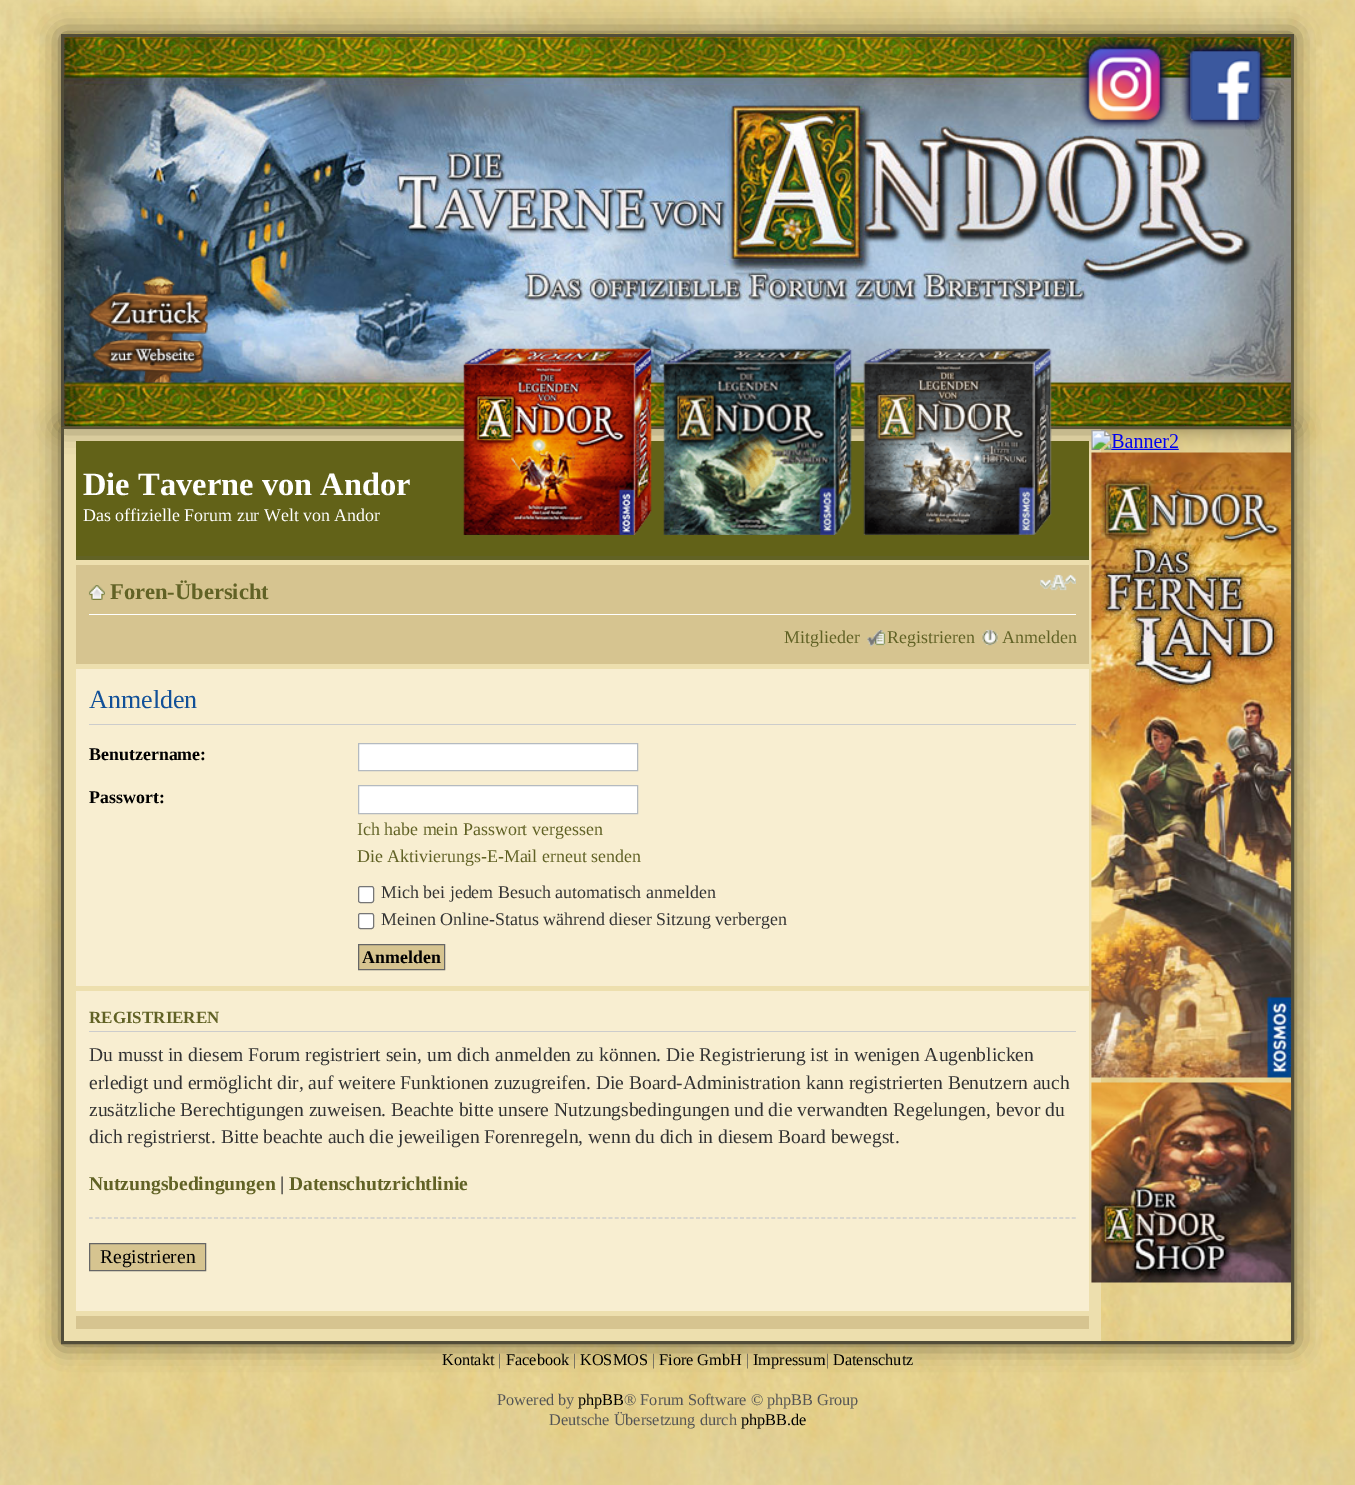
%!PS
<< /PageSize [1355 1485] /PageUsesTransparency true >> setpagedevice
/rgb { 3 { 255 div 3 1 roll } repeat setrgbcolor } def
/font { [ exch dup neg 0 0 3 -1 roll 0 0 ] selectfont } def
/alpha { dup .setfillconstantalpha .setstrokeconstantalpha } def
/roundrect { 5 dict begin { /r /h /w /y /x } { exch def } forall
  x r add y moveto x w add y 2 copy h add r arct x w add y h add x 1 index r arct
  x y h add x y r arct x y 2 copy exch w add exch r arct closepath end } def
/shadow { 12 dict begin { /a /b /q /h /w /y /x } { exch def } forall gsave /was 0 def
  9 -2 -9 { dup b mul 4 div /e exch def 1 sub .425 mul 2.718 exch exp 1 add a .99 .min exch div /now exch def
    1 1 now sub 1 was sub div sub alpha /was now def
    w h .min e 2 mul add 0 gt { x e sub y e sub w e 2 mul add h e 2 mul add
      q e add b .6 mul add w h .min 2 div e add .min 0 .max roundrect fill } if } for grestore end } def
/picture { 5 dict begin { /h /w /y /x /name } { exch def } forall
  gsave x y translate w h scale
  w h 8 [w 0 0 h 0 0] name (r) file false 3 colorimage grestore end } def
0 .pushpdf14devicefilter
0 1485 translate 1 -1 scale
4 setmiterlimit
255 255 255 rgb
0 0 1355 1485 rectfill
(img/1.rgb) 0 1470 1355 15 picture
(img/2.rgb) 0 0 1355 1470 picture
gsave
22 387 moveto 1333 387 lineto 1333 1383 lineto 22 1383 lineto closepath 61 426 moveto 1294 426 lineto 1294 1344 lineto 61 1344 lineto closepath eoclip newpath
105 95 63 rgb
61 426 1233 918 0 12.5 1 shadow
grestore
82 77 57 rgb
3 setlinewidth
62.5 427.5 1230 915 rectstroke
237 223 174 rgb
64 429 1037 912 rectfill
105 95 63 rgb
61 34 1233 392 0 12.5 1 shadow
(img/3.rgb) 61 33 1233 394 picture
[
  [61 34 1233 3 82 77 57]
  [1291 34 3 392 82 77 57]
  [61 34 3 392 82 77 57]
] { aload pop rgb rectfill } forall
(img/4.rgb) 1078 39 92 91 picture
(img/5.rgb) 1180 41 90 89 picture
(img/6.rgb) 88 276 121 107 picture
98 98 24 rgb
76 441 1013 115 rectfill
(img/7.rgb) 463 348 189 187 picture
(img/8.rgb) 663 348 189 187 picture
(img/9.rgb) 863 348 189 187 picture
(img/10.rgb) 1091 430 201 853 picture
[
  [76 556 1013 4 97 98 37]
  [76 565 1013 99 214 196 144]
  [89 614 987 1 255 255 255]
] { aload pop rgb rectfill } forall
(img/11.rgb) 88 585 17 15 picture
(img/12.rgb) 1040 574 36 17 picture
(img/13.rgb) 867 630 19 17 picture
(img/14.rgb) 982 629 16 17 picture
248 238 209 rgb
76 669 1013 317 rectfill
204 204 204 rgb
89 724 987 1 rectfill
255 255 255 rgb
358.5 743.5 moveto 637.5 743.5 lineto 637.5 770.5 lineto 358.5 770.5 lineto closepath gsave fill grestore
180 186 192 rgb
1 setlinewidth
stroke
255 255 255 rgb
358.5 785.5 moveto 637.5 785.5 lineto 637.5 813.5 lineto 358.5 813.5 lineto closepath gsave fill grestore
180 186 192 rgb
stroke
255 255 255 rgb
358.5 886.5 15 16 2 roundrect gsave fill grestore
118 118 118 rgb
stroke
255 255 255 rgb
358.5 913.5 15 15 2 roundrect gsave fill grestore
118 118 118 rgb
stroke
214 196 144 rgb
358.5 944.5 moveto 444.5 944.5 lineto 444.5 969.5 lineto 358.5 969.5 lineto closepath gsave fill grestore
102 102 102 rgb
stroke
248 238 209 rgb
76 991 1013 320 rectfill
204 204 204 rgb
89 1031 987 1 rectfill
1.2 setlinewidth
[3.75 2.51] 0 setdash
89 1218 moveto 1076 1218 lineto stroke
214 196 144 rgb
89.5 1243.5 moveto 205.5 1243.5 lineto 205.5 1270.5 lineto 89.5 1270.5 lineto closepath gsave fill grestore
102 102 102 rgb
1 setlinewidth
[] 0 setdash
stroke
214 196 144 rgb
76 1316 1013 13 rectfill
/LiberationSerif-Bold 32.5 font
255 255 255 rgb
83 495 moveto (Die Taverne von Andor) show
/LiberationSerif-Regular 17.9 font
83 521 moveto (Das offizielle Forum zur Welt von Andor) show
/LiberationSerif-Bold 22.5 font
97 98 37 rgb
110 599 moveto (Foren-Übersicht) show
/LiberationSerif-Regular 17.9 font
[
  [(Mitglieder) 784 643]
  [(Registrieren) 887 643]
  [(Anmelden) 1002 643]
] { aload pop moveto show } forall
/LiberationSerif-Regular 26 font
17 80 152 rgb
89 708 moveto (Anmelden) show
/LiberationSerif-Bold 17.9 font
0 0 0 rgb
89 760 moveto (Benutzername:) show
89 803 moveto (Passwort:) show
/LiberationSerif-Regular 17.9 font
97 98 37 rgb
357 835 moveto (Ich habe mein Passwort vergessen) show
357 862 moveto (Die Aktivierungs-E-Mail erneut senden) show
51 51 51 rgb
381 898 moveto (Mich bei jedem Besuch automatisch anmelden) show
381 925 moveto (Meinen Online-Status während dieser Sitzung verbergen) show
/LiberationSerif-Bold 17.9 font
0 0 0 rgb
362 963 moveto (Anmelden) show
/LiberationSerif-Bold 17 font
97 98 37 rgb
89 1023 moveto (REGISTRIEREN) show
/LiberationSerif-Regular 19.5 font
51 51 51 rgb
[
  [(Du musst in diesem Forum registriert sein, um dich anmelden zu können. Die Registrierung ist in wenigen Augenblicken) 89 1061]
  [(erledigt und ermöglicht dir, auf weitere Funktionen zuzugreifen. Die Board-Administration kann registrierten Benutzern auch) 89 1089]
  [(zusätzliche Berechtigungen zuweisen. Beachte bitte unsere Nutzungsbedingungen und die verwandten Regelungen, bevor du) 89 1116]
  [(dich registrierst. Bitte beachte auch die jeweiligen Forenregeln, wenn du dich in diesem Board bewegst.) 89 1143]
] { aload pop moveto show } forall
/LiberationSerif-Bold 19.5 font
97 98 37 rgb
89 1190 moveto (Nutzungsbedingungen) show
51 51 51 rgb
280 1190 moveto (|) show
97 98 37 rgb
289 1190 moveto (Datenschutzrichtlinie) show
/LiberationSerif-Regular 19.5 font
0 0 0 rgb
100 1263 moveto (Registrieren) show
/LiberationSerif-Regular 16.25 font
442 1365 moveto (Kontakt) show
85 85 85 rgb
498 1365 moveto (|) show
0 0 0 rgb
506 1365 moveto (Facebook) show
85 85 85 rgb
573 1365 moveto (|) show
0 0 0 rgb
580 1365 moveto (KOSMOS) show
85 85 85 rgb
652 1365 moveto (|) show
0 0 0 rgb
659 1365 moveto (Fiore GmbH) show
85 85 85 rgb
746 1365 moveto (|) show
0 0 0 rgb
753 1365 moveto (Impressum) show
85 85 85 rgb
826 1365 moveto (|) show
0 0 0 rgb
833 1365 moveto (Datenschutz) show
85 85 85 rgb
497 1405 moveto (Powered by) show
0 0 0 rgb
578 1405 moveto (phpBB) show
85 85 85 rgb
624 1405 moveto (® Forum Software © phpBB Group) show
549 1425 moveto (Deutsche Übersetzung durch) show
0 0 0 rgb
741 1425 moveto (phpBB.de) show
.poppdf14devicefilter showpage
